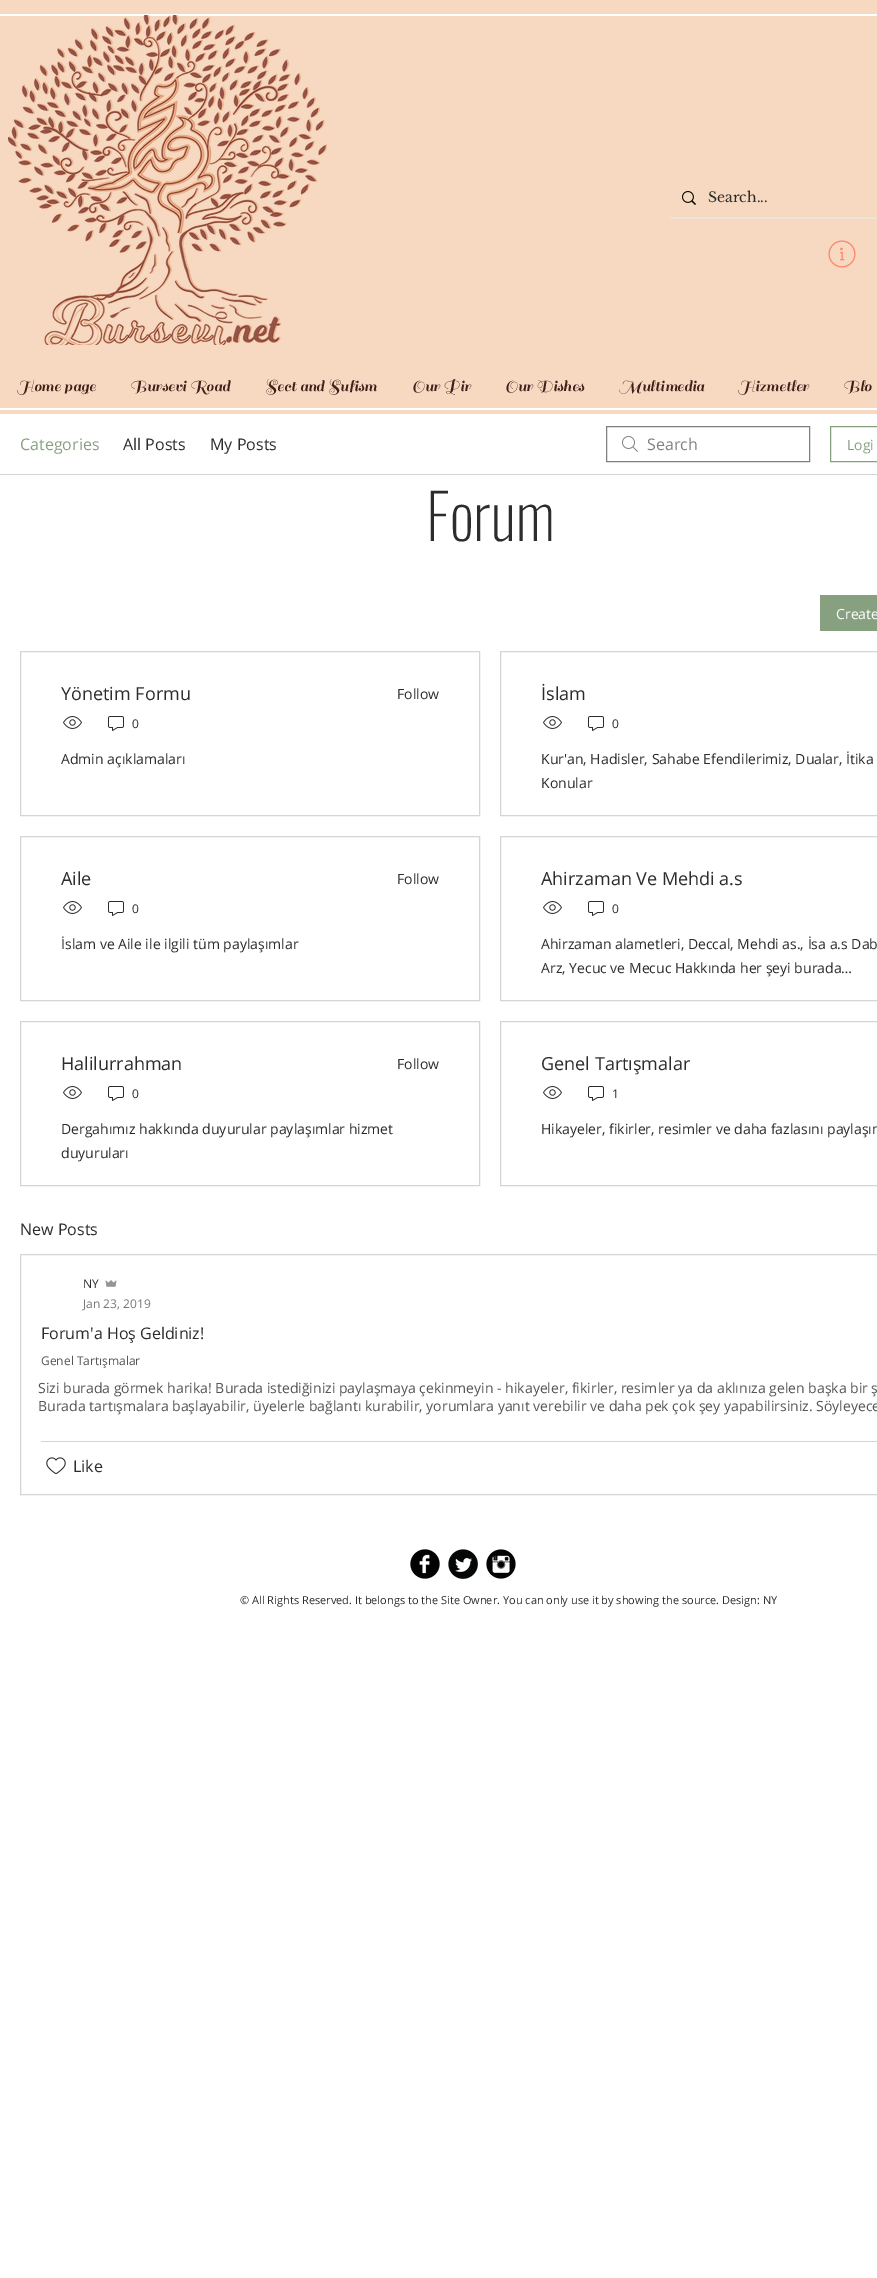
%!PS
<< /PageSize [877 2278] >> setpagedevice
/rgb { 3 { 255 div 3 1 roll } repeat setrgbcolor } def
/font { [ exch dup neg 0 0 3 -1 roll 0 0 ] selectfont } def
/picture { 5 dict begin { /h /w /y /x /name } { exch def } forall
  gsave x y translate w h scale
  w h 8 [w 0 0 h 0 0] name (r) file false 3 colorimage grestore end } def
0 2278 translate 1 -1 scale
4 setmiterlimit
255 255 255 rgb
0 0 877 2278 rectfill
[
  [0 0 877 414 246 217 192]
  [0 14 877 2 255 255 255]
  [0 408 877 2 255 255 255]
] { aload pop rgb rectfill } forall
(img/1.rgb) 8 15 319 330 picture
235 229 214 rgb
670 217 207 2 rectfill
(img/2.rgb) 682 191 14 14 picture
(img/3.rgb) 828 240 28 28 picture
213 213 213 rgb
0 474 877 1 rectfill
(img/4.rgb) 622 436 16 16 picture
128 128 128 rgb
606.5 426.5 203 35 rectstroke
135 161 128 rgb
830.5 426.5 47 35 rectstroke
820 595 57 36 rectfill
213 213 213 rgb
20.5 651.5 459 164 rectstroke
(img/5.rgb) 63 716 19 13 picture
(img/6.rgb) 108 716 16 15 picture
20.5 836.5 459 164 rectstroke
(img/5.rgb) 63 901 19 13 picture
(img/6.rgb) 108 901 16 15 picture
20.5 1021.5 459 164 rectstroke
(img/5.rgb) 63 1086 19 13 picture
(img/6.rgb) 108 1086 16 15 picture
500.5 651.5 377 164 rectstroke
(img/5.rgb) 543 716 19 13 picture
(img/6.rgb) 588 716 16 15 picture
500.5 836.5 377 164 rectstroke
(img/5.rgb) 543 901 19 13 picture
(img/6.rgb) 588 901 16 15 picture
500.5 1021.5 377 164 rectstroke
(img/5.rgb) 543 1086 19 13 picture
(img/6.rgb) 588 1086 16 15 picture
20.5 1254.5 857 240 rectstroke
(img/7.rgb) 105 1280 12 7 picture
41 1441 836 1 rectfill
(img/8.rgb) 46 1457 20 18 picture
(img/9.rgb) 410 1549 30 30 picture
(img/10.rgb) 448 1549 30 30 picture
(img/11.rgb) 486 1549 30 30 picture
/LibreBaskerville-Regular 14 font
44 44 43 rgb
708 202 moveto (Search...) show
/Sail-Regular 17 font
63 33 28 rgb
[
  [(Home page) 17 391]
  [(Bursevi Road) 130 391]
  [(Sect and Sufism) 265 391]
  [(Our Pir) 412 391]
  [(Our Dishes) 505 391]
  [(Multimedia) 619 391]
  [(Hizmetler) 738 391]
  [(Blo) 843 391]
] { aload pop moveto show } forall
/OpenSans-Regular 16 font
135 161 128 rgb
20 450 moveto (Categories) show
44 44 43 rgb
123 450 moveto (All Posts) show
210 450 moveto (My Posts) show
128 128 128 rgb
647 450 moveto (Search) show
/OpenSans-Regular 14 font
135 161 128 rgb
847 450 moveto (Logi) show
/Oswald-ExtraLight 62 font
44 44 43 rgb
426 541 moveto (Forum) show
/OpenSans-Regular 14 font
255 255 255 rgb
836 619 moveto (Create) show
/OpenSans-Regular 18 font
44 44 43 rgb
61 700 moveto (Yönetim Formu) show
/OpenSans-Regular 14 font
397 699 moveto (Follow) show
/OpenSans-Regular 12 font
132 728 moveto (0) show
/OpenSans-Regular 14 font
61 764 moveto (Admin açıklamaları) show
/OpenSans-Regular 18 font
61 885 moveto (Aile) show
/OpenSans-Regular 14 font
397 884 moveto (Follow) show
/OpenSans-Regular 12 font
132 913 moveto (0) show
/OpenSans-Regular 14 font
61 949 moveto (İslam ve Aile ile ilgili tüm paylaşımlar) show
/OpenSans-Regular 18 font
61 1070 moveto (Halilurrahman) show
/OpenSans-Regular 14 font
397 1069 moveto (Follow) show
/OpenSans-Regular 12 font
132 1098 moveto (0) show
/OpenSans-Regular 14 font
61 1134 moveto (Dergahımız hakkında duyurular paylaşımlar hizmet) show
61 1158 moveto (duyuruları) show
/OpenSans-Regular 18 font
541 700 moveto (İslam) show
/OpenSans-Regular 12 font
612 728 moveto (0) show
/OpenSans-Regular 14 font
541 764 moveto (Kur'an, Hadisler, Sahabe Efendilerimiz, Dualar, İtika) show
541 788 moveto (Konular) show
/OpenSans-Regular 18 font
541 885 moveto (Ahirzaman Ve Mehdi a.s) show
/OpenSans-Regular 12 font
612 913 moveto (0) show
/OpenSans-Regular 14 font
541 949 moveto (Ahirzaman alametleri, Deccal, Mehdi as., İsa a.s Dab) show
541 973 moveto (Arz, Yecuc ve Mecuc Hakkında her şeyi burada…) show
/OpenSans-Regular 18 font
541 1070 moveto (Genel Tartışmalar) show
/OpenSans-Regular 12 font
612 1098 moveto (1) show
/OpenSans-Regular 14 font
541 1134 moveto (Hikayeler, fikirler, resimler ve daha fazlasını paylaşın) show
/OpenSans-Regular 16 font
20 1235 moveto (New Posts) show
/OpenSans-Regular 12 font
83 1288 moveto (NY) show
120 120 119 rgb
83 1308 moveto (Jan 23, 2019) show
/OpenSans-Regular 16 font
44 44 43 rgb
41 1339 moveto (Forum'a Hoş Geldiniz!) show
/OpenSans-Regular 12 font
86 86 85 rgb
41 1365 moveto (Genel Tartışmalar) show
/OpenSans-Regular 14 font
38 1393 moveto (Sizi burada görmek harika! Burada istediğinizi paylaşmaya çekinmeyin - hikayeler, fikirler, resimler ya da aklınıza gelen başka bir ş) show
38 1411 moveto (Burada tartışmalara başlayabilir, üyelerle bağlantı kurabilir, yorumlara yanıt verebilir ve daha pek çok şey yapabilirsiniz. Söyleyece) show
/OpenSans-Regular 16 font
44 44 43 rgb
73 1472 moveto (Like) show
/OpenSans-Regular 11 font
240 1604 moveto (© All Rights Reserved. It belongs to the Site Owner. You can only use it by showing the source. Design: NY) show
showpage
